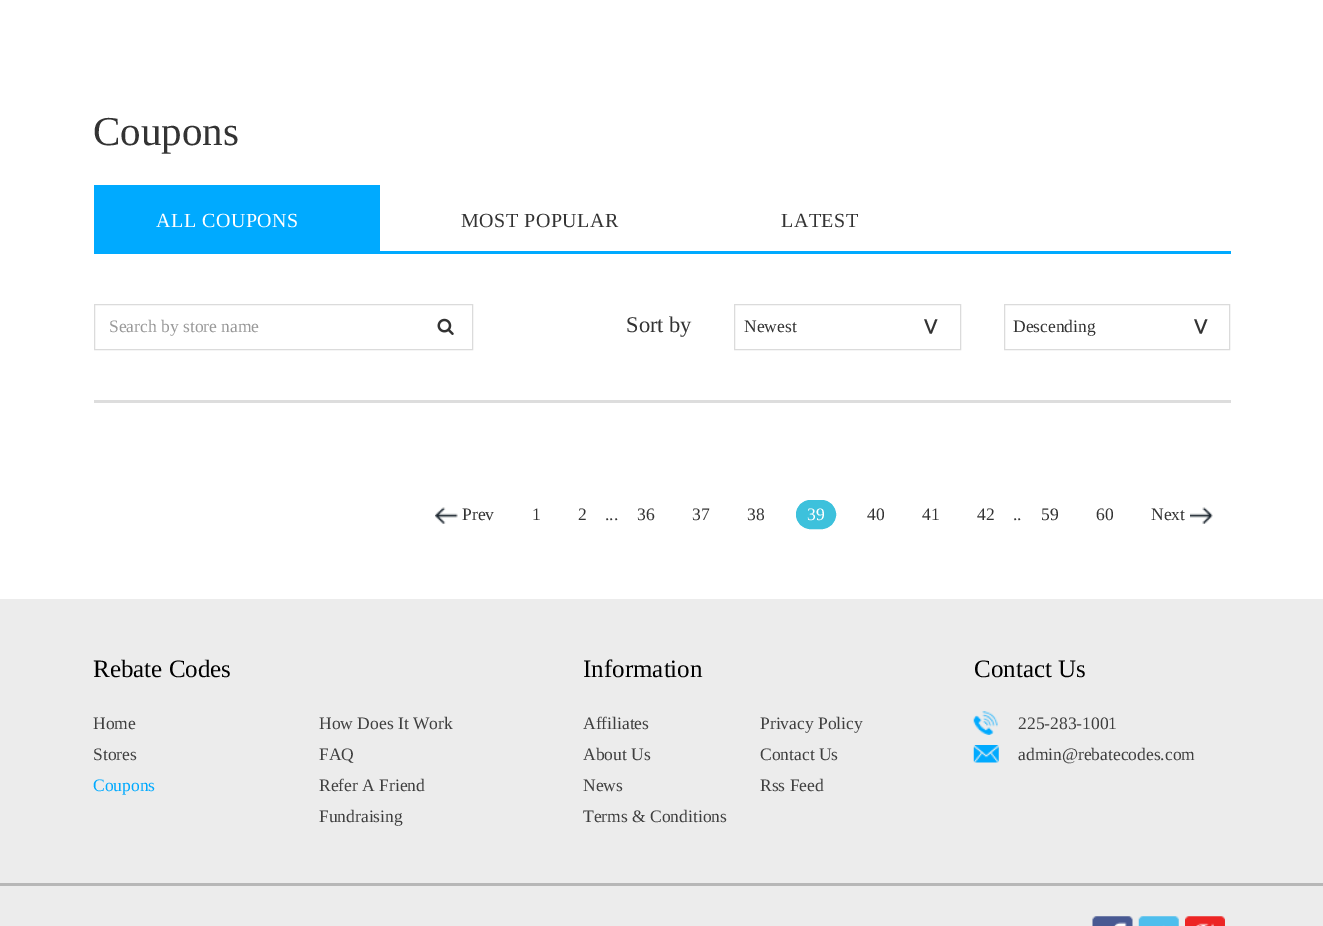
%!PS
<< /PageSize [1323 926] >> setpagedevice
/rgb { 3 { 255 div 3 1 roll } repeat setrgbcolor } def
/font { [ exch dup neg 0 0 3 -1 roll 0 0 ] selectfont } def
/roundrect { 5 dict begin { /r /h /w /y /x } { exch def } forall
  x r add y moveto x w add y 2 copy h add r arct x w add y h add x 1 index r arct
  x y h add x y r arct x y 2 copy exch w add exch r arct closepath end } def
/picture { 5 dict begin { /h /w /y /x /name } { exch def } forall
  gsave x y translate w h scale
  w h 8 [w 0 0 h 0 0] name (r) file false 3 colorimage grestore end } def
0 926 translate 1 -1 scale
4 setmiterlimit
255 255 255 rgb
0 0 1323 926 rectfill
0 170 255 rgb
94 251 1137 3 rectfill
94 185 286 66 rectfill
219 219 219 rgb
94.5 304.5 378 45 rectstroke
(img/1.rgb) 437 318 17 17 picture
734.5 304.5 226 45 rectstroke
1004.5 304.5 225 45 rectstroke
221 221 221 rgb
94 400 1137 3 rectfill
(img/2.rgb) 435 507 23 17 picture
61 193 220 rgb
796.5 500.5 39 28 14 roundrect gsave fill grestore
stroke
(img/3.rgb) 1190 507 23 17 picture
236 236 236 rgb
0 599 1323 327 rectfill
(img/4.rgb) 973 711 25 24 picture
(img/5.rgb) 973 745 26 18 picture
183 183 183 rgb
0 883 1323 3 rectfill
(img/6.rgb) 1092 916 41 10 picture
(img/7.rgb) 1138 916 41 10 picture
(img/8.rgb) 1185 916 40 10 picture
/LiberationSerif-Regular 41 font
51 51 51 rgb
93 145 moveto (Coupons) show
/LiberationSerif-Regular 20 font
255 255 255 rgb
156 227 moveto 0.5 0 (ALL COUPONS) ashow
51 51 51 rgb
461 227 moveto 0.5 0 (MOST POPULAR) ashow
781 227 moveto 0.5 0 (LATEST) ashow
/LiberationSerif-Regular 17.5 font
153 153 153 rgb
109 332 moveto (Search by store name) show
/LiberationSerif-Regular 22.5 font
51 51 51 rgb
626 332 moveto (Sort by) show
/LiberationSerif-Regular 17.5 font
744 332 moveto (Newest) show
/DejaVuSansMono-Regular 28 font
gsave 922 318 translate 90 rotate 0 0 moveto (>) show grestore
/LiberationSerif-Regular 17.5 font
1013 332 moveto (Descending) show
/DejaVuSansMono-Regular 28 font
gsave 1192 318 translate 90 rotate 0 0 moveto (>) show grestore
/LiberationSerif-Regular 17.5 font
[
  [(Prev) 462 520]
  [(1) 532 520]
  [(2) 578 520]
  [(...) 605 520]
  [(36) 637 520]
  [(37) 692 520]
  [(38) 747 520]
] { aload pop moveto show } forall
255 255 255 rgb
807 520 moveto (39) show
51 51 51 rgb
[
  [(40) 867 520]
  [(41) 922 520]
  [(42) 977 520]
  [(..) 1013 520]
  [(59) 1041 520]
  [(60) 1096 520]
  [(Next) 1151 520]
] { aload pop moveto show } forall
/LiberationSerif-Regular 25 font
0 0 0 rgb
93 677 moveto (Rebate Codes) show
/LiberationSerif-Regular 17.5 font
63 63 63 rgb
93 729 moveto (Home) show
93 760 moveto (Stores) show
0 170 255 rgb
93 791 moveto (Coupons) show
63 63 63 rgb
[
  [(How Does It Work) 319 729]
  [(FAQ) 319 760]
  [(Refer A Friend) 319 791]
  [(Fundraising) 319 822]
] { aload pop moveto show } forall
/LiberationSerif-Regular 25 font
0 0 0 rgb
583 677 moveto (Information) show
/LiberationSerif-Regular 17.5 font
63 63 63 rgb
[
  [(Affiliates) 583 729]
  [(About Us) 583 760]
  [(News) 583 791]
  [(Terms & Conditions) 583 822]
  [(Privacy Policy) 760 729]
  [(Contact Us) 760 760]
  [(Rss Feed) 760 791]
] { aload pop moveto show } forall
/LiberationSerif-Regular 25 font
0 0 0 rgb
974 677 moveto (Contact Us) show
/LiberationSerif-Regular 17.5 font
63 63 63 rgb
1018 729 moveto (225-283-1001) show
1018 760 moveto (admin@rebatecodes.com) show
showpage
